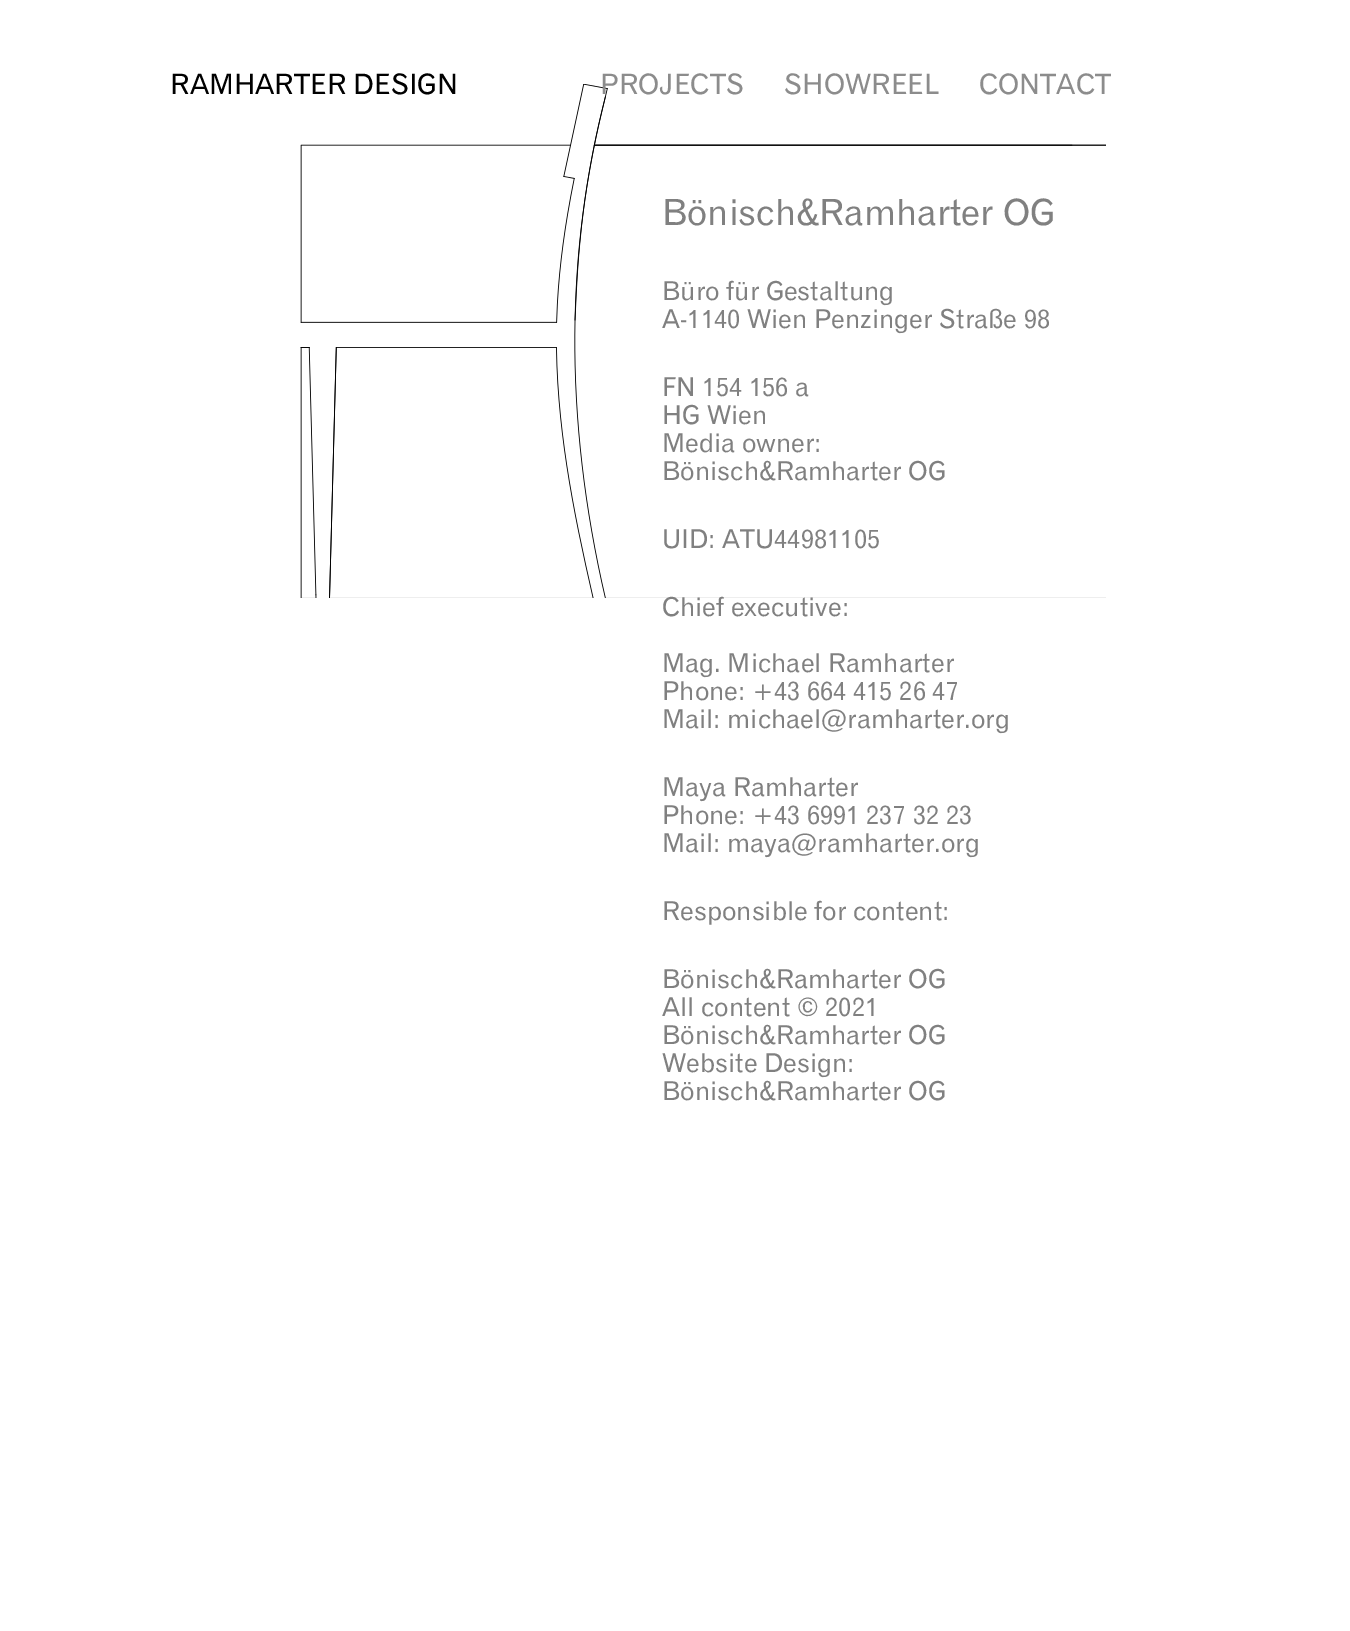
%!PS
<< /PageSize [1350 1631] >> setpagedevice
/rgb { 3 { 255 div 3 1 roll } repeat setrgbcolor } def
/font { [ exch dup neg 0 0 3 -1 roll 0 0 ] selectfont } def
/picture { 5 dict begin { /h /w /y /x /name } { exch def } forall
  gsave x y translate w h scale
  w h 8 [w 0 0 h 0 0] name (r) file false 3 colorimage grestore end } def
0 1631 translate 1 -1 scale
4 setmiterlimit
255 255 255 rgb
0 0 1350 1631 rectfill
(img/1.rgb) 300 84 806 514 picture
/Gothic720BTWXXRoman-Regular 28 font
0 0 0 rgb
170 94 moveto (RAMHARTER DESIGN) show
140 140 140 rgb
[
  [(PROJECTS) 600 94]
  [(SHOWREEL) 784 94]
  [(CONTACT) 979 94]
] { aload pop moveto show } forall
/Gothic720BTWXXRoman-Regular 36 font
128 128 128 rgb
662 225 moveto (Bönisch&Ramharter OG) show
/Gothic720BTWXXRoman-Regular 26 font
[
  [(Büro für Gestaltung) 662 300]
  [(A-1140 Wien Penzinger Straße 98) 662 328]
  [(FN 154 156 a) 662 396]
  [(HG Wien) 662 424]
  [(Media owner:) 662 452]
  [(Bönisch&Ramharter OG) 662 480]
  [(UID: ATU44981105) 662 548]
  [(Chief executive:) 662 616]
  [(Mag. Michael Ramharter) 662 672]
  [(Phone: +43 664 415 26 47) 662 700]
  [(Mail: michael@ramharter.org) 662 728]
  [(Maya Ramharter) 662 796]
  [(Phone: +43 6991 237 32 23) 662 824]
  [(Mail: maya@ramharter.org) 662 852]
  [(Responsible for content:) 662 920]
  [(Bönisch&Ramharter OG) 662 988]
  [(All content © 2021) 662 1016]
  [(Bönisch&Ramharter OG) 662 1044]
  [(Website Design:) 662 1072]
  [(Bönisch&Ramharter OG) 662 1100]
] { aload pop moveto show } forall
showpage
